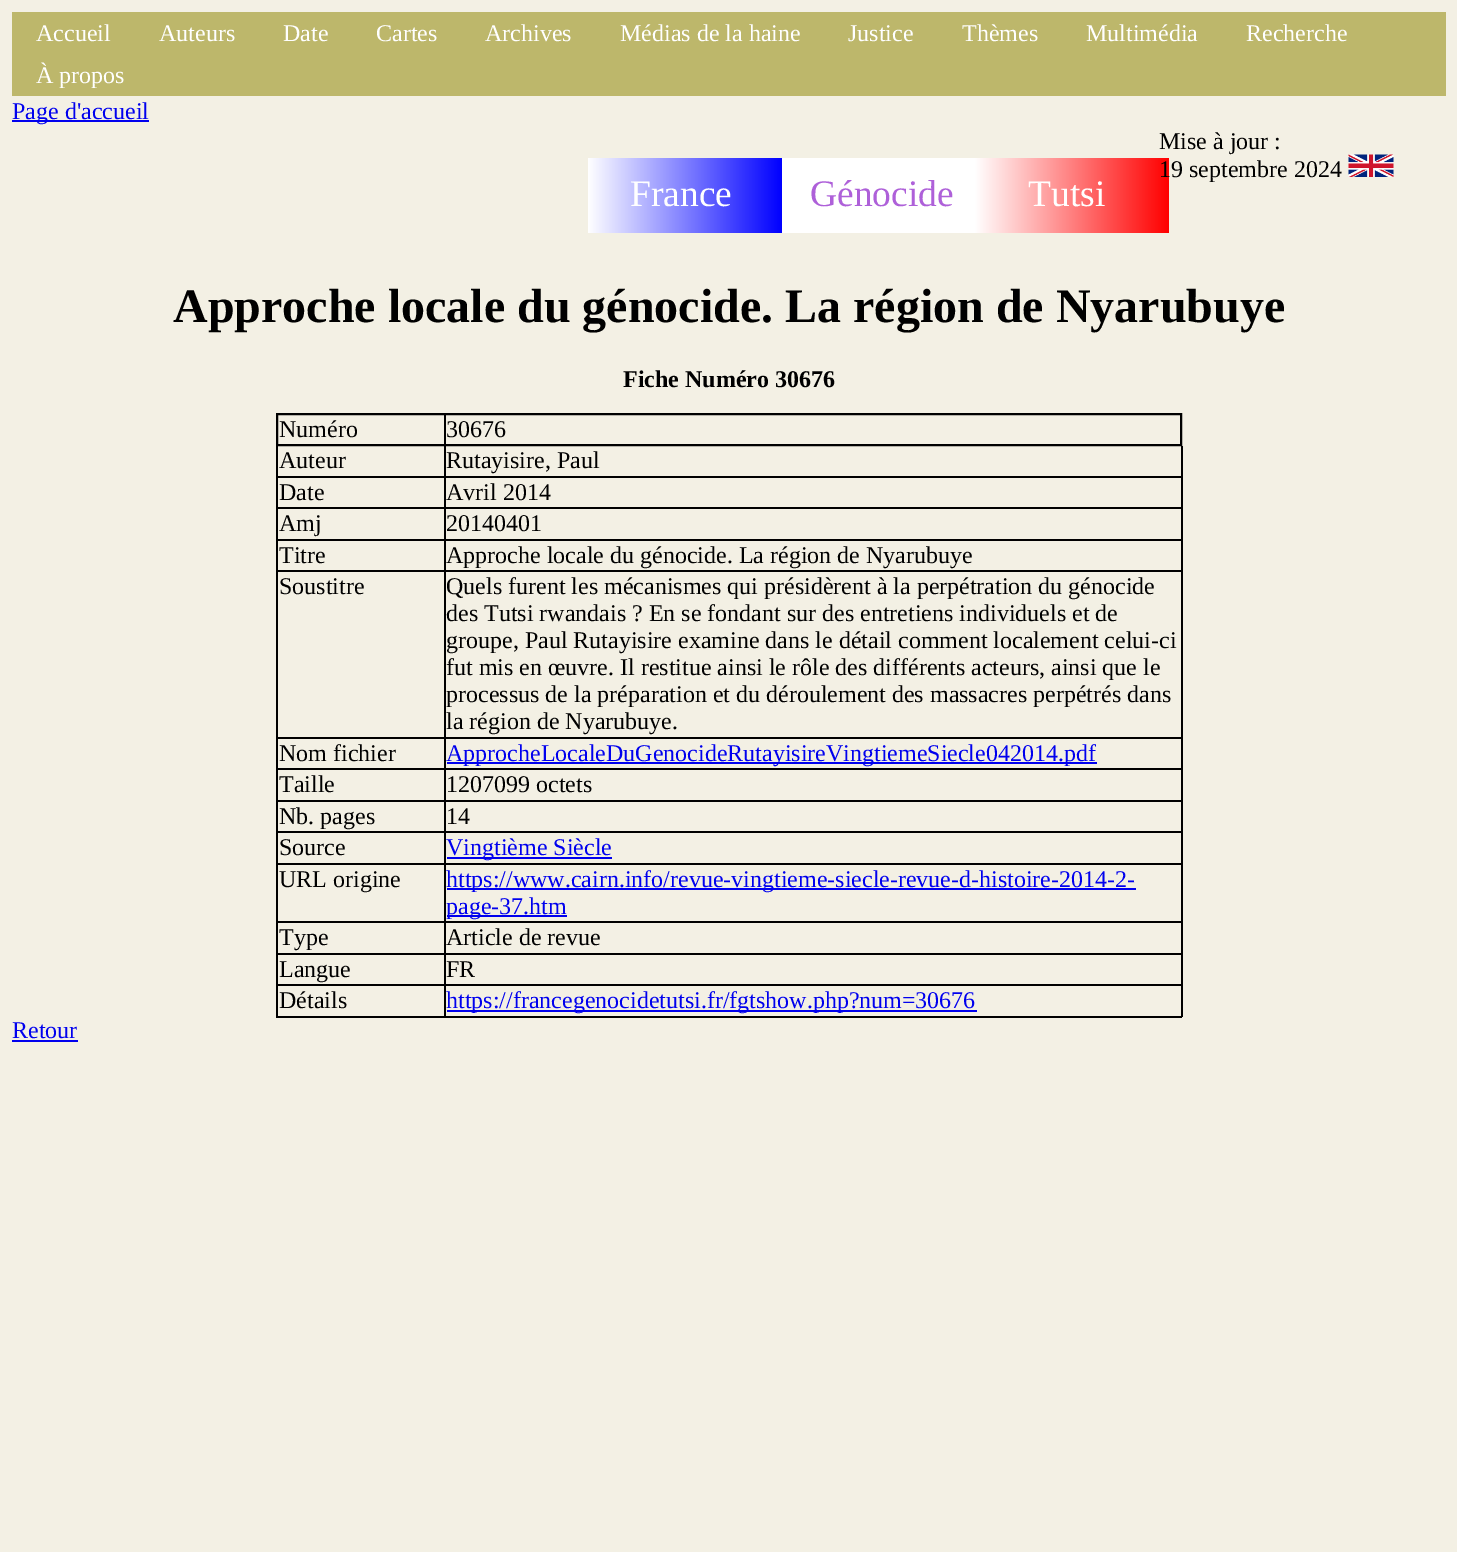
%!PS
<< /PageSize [1457 1552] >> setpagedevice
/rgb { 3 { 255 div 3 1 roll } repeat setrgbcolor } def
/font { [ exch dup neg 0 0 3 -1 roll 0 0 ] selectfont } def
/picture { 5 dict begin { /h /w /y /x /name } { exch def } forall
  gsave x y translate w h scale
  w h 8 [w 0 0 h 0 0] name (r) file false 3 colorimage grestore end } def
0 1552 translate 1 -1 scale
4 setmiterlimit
243 240 228 rgb
0 0 1457 1552 rectfill
189 183 107 rgb
12 12 1434 84 rectfill
0 0 238 rgb
12 120 137 2 rectfill
(img/1.rgb) 1348 154 46 23 picture
gsave 588 158 moveto 782 158 lineto 782 233 lineto 588 233 lineto closepath clip newpath
<< /ShadingType 2 /ColorSpace /DeviceRGB /Coords [588 158 782 158] /Extend [true true] /Function << /FunctionType 2 /Domain [0 1] /C0 [1 1 1] /C1 [0 0 1] /N 1 >> >> shfill grestore
255 255 255 rgb
782 158 193 75 rectfill
gsave 975 158 moveto 1169 158 lineto 1169 233 lineto 975 233 lineto closepath clip newpath
<< /ShadingType 2 /ColorSpace /DeviceRGB /Coords [975 158 1169 158] /Extend [true true] /Function << /FunctionType 2 /Domain [0 1] /C0 [1 1 1] /C1 [1 0 0] /N 1 >> >> shfill grestore
0 0 0 rgb
2 setlinewidth
277 414 904 31 rectstroke
[
  [444 414 2 30 0 0 0]
  [1181 446 2 31 0 0 0]
  [276 476 906 2 0 0 0]
  [276 446 2 31 0 0 0]
  [444 446 2 30 0 0 0]
  [1181 477 2 63 0 0 0]
  [276 507 906 2 0 0 0]
  [276 477 2 32 0 0 0]
  [444 477 2 30 0 0 0]
  [276 539 906 2 0 0 0]
  [276 509 2 31 0 0 0]
  [444 509 2 30 0 0 0]
  [1181 540 2 198 0 0 0]
  [276 570 906 2 0 0 0]
  [276 540 2 32 0 0 0]
  [444 540 2 30 0 0 0]
  [276 737 906 2 0 0 0]
  [276 572 2 166 0 0 0]
  [444 572 2 165 0 0 0]
  [1181 738 2 63 0 0 0]
  [276 768 906 2 0 0 0]
  [276 738 2 32 0 0 0]
  [444 738 2 30 0 0 0]
  [447 762 650 2 0 0 238]
  [276 800 906 2 0 0 0]
  [276 770 2 31 0 0 0]
  [444 770 2 30 0 0 0]
  [1181 801 2 63 0 0 0]
  [276 831 906 2 0 0 0]
  [276 801 2 32 0 0 0]
  [444 801 2 30 0 0 0]
  [276 863 906 2 0 0 0]
  [276 833 2 31 0 0 0]
  [444 833 2 30 0 0 0]
  [447 857 165 2 0 0 238]
  [1181 864 2 90 0 0 0]
  [276 921 906 2 0 0 0]
  [276 864 2 59 0 0 0]
  [444 864 2 57 0 0 0]
  [447 888 689 2 0 0 238]
  [447 915 120 2 0 0 238]
  [276 953 906 2 0 0 0]
  [276 923 2 31 0 0 0]
  [444 923 2 30 0 0 0]
  [1181 954 2 63 0 0 0]
  [276 984 906 2 0 0 0]
  [276 954 2 32 0 0 0]
  [444 954 2 30 0 0 0]
  [276 1016 906 2 0 0 0]
  [276 986 2 31 0 0 0]
  [444 986 2 30 0 0 0]
  [447 1010 530 2 0 0 238]
  [12 1040 66 2 0 0 238]
] { aload pop rgb rectfill } forall
/LiberationSerif-Regular 24 font
255 255 255 rgb
[
  [(Accueil) 36 41]
  [(Auteurs) 159 41]
  [(Date) 283 41]
  [(Cartes) 376 41]
  [(Archives) 485 41]
  [(Médias de la haine) 620 41]
  [(Justice) 848 41]
  [(Thèmes) 962 41]
  [(Multimédia) 1086 41]
  [(Recherche) 1246 41]
  [(À propos) 36 83]
] { aload pop moveto show } forall
0 0 238 rgb
12 119 moveto (Page d'accueil) show
0 0 0 rgb
1159 149 moveto (Mise à jour :) show
1159 177 moveto (19 septembre 2024) show
/LiberationSerif-Regular 37.5 font
255 255 255 rgb
630 206 moveto (France) show
174 96 217 rgb
810 206 moveto (Génocide) show
255 255 255 rgb
1028 206 moveto (Tutsi) show
/LiberationSerif-Bold 48 font
0 0 0 rgb
173 322 moveto (Approche locale du génocide. La région de Nyarubuye) show
/LiberationSerif-Bold 24 font
623 387 moveto (Fiche Numéro 30676) show
/LiberationSerif-Regular 24 font
[
  [(Numéro) 279 437]
  [(30676) 446 437]
  [(Auteur) 279 468]
  [(Rutayisire, Paul) 446 468]
  [(Date) 279 500]
  [(Avril 2014) 446 500]
  [(Amj) 279 531]
  [(20140401) 446 531]
  [(Titre) 279 563]
  [(Approche locale du génocide. La région de Nyarubuye) 446 563]
  [(Soustitre) 279 594]
  [(Quels furent les mécanismes qui présidèrent à la perpétration du génocide) 446 594]
  [(des Tutsi rwandais ? En se fondant sur des entretiens individuels et de) 446 621]
  [(groupe, Paul Rutayisire examine dans le détail comment localement celui-ci) 446 648]
  [(fut mis en œuvre. Il restitue ainsi le rôle des différents acteurs, ainsi que le) 446 675]
  [(processus de la préparation et du déroulement des massacres perpétrés dans) 446 702]
  [(la région de Nyarubuye.) 446 729]
  [(Nom fichier) 279 761]
] { aload pop moveto show } forall
0 0 238 rgb
446 761 moveto (ApprocheLocaleDuGenocideRutayisireVingtiemeSiecle042014.pdf) show
0 0 0 rgb
[
  [(Taille) 279 792]
  [(1207099 octets) 446 792]
  [(Nb. pages) 279 824]
  [(14) 446 824]
  [(Source) 279 855]
] { aload pop moveto show } forall
0 0 238 rgb
446 855 moveto (Vingtième Siècle) show
0 0 0 rgb
279 887 moveto (URL origine) show
0 0 238 rgb
446 887 moveto (https://www.cairn.info/revue-vingtieme-siecle-revue-d-histoire-2014-2-) show
446 914 moveto (page-37.htm) show
0 0 0 rgb
[
  [(Type) 279 945]
  [(Article de revue) 446 945]
  [(Langue) 279 977]
  [(FR) 446 977]
  [(Détails) 279 1008]
] { aload pop moveto show } forall
0 0 238 rgb
446 1008 moveto (https://francegenocidetutsi.fr/fgtshow.php?num=30676) show
12 1038 moveto (Retour) show
showpage
